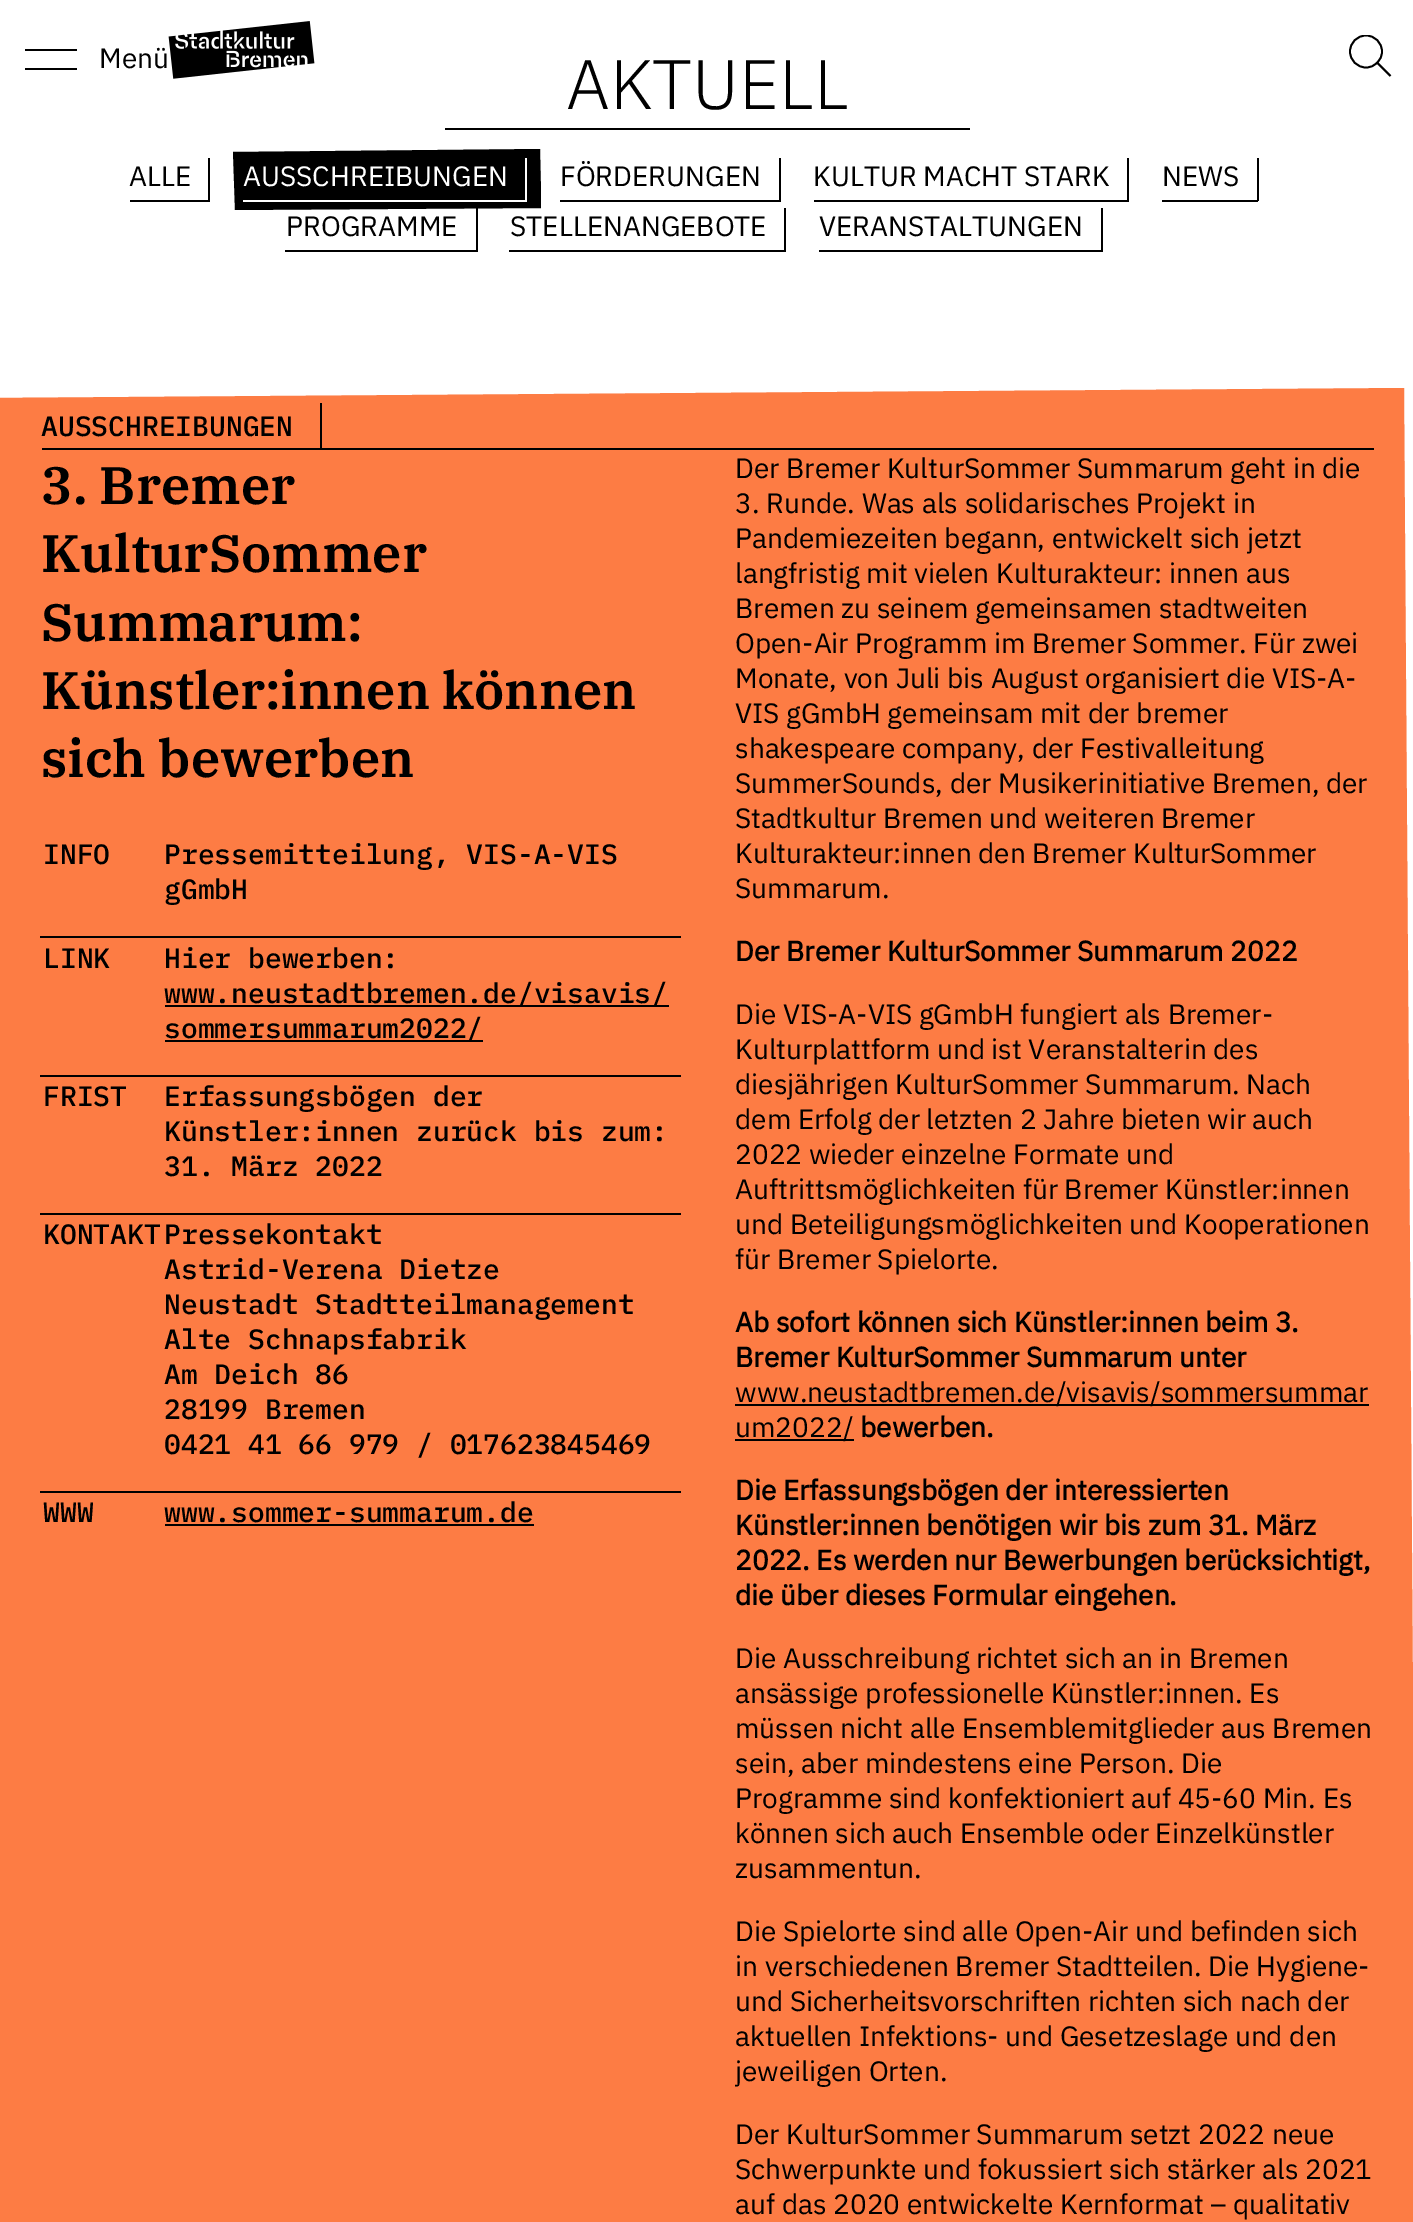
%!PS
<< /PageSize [1413 2222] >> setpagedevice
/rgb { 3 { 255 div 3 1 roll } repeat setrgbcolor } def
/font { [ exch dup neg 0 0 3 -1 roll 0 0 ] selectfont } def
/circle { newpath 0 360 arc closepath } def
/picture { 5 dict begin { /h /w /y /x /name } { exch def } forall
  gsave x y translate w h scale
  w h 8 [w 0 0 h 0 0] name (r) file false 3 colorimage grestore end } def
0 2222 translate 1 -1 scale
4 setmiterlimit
255 255 255 rgb
0 0 1413 2222 rectfill
0 0 0 rgb
25 49 52 2 rectfill
25 68 52 2 rectfill
(img/1.rgb) 168 21 147 58 picture
gsave
1349 35 42 42 rectclip
1.8 setlinewidth
1366 51.5 16 circle stroke
grestore
1.8 setlinewidth
1376.5 62 moveto 1390.5 76 lineto stroke
[
  [445 128 525 2 0 0 0]
  [208 158 2 43 0 0 0]
  [130 200 80 2 0 0 0]
  [476 208 2 44 0 0 0]
] { aload pop rgb rectfill } forall
541 208 moveto 235 210 lineto 233 152 lineto 540 149 lineto 541 192 lineto closepath fill
[
  [525 158 2 43 255 255 255]
  [243 200 284 2 255 255 255]
  [779 158 2 43 0 0 0]
  [560 200 221 2 0 0 0]
  [1127 158 2 43 0 0 0]
  [814 200 315 2 0 0 0]
  [1257 158 2 43 0 0 0]
  [1162 200 96 2 0 0 0]
  [285 250 193 2 0 0 0]
  [784 208 2 44 0 0 0]
  [509 250 277 2 0 0 0]
  [1101 208 2 44 0 0 0]
  [819 250 284 2 0 0 0]
] { aload pop rgb rectfill } forall
253 124 68 rgb
-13 398 moveto 1404 388 lineto 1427 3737 lineto 10 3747 lineto closepath fill
[
  [42 448 1332 2 0 0 0]
  [320 403 2 45 0 0 0]
  [40 936 641 2 0 0 0]
  [40 1075 641 2 0 0 0]
  [165 1005 504 2 0 0 0]
  [165 1040 318 2 0 0 0]
  [40 1213 641 2 0 0 0]
  [40 1491 641 2 0 0 0]
  [165 1524 369 2 0 0 0]
  [735 1404 634 2 0 0 0]
  [735 1439 119 2 0 0 0]
] { aload pop rgb rectfill } forall
/IBMPlexSans-Regular 28 font
99 68 moveto (Menü) show
/IBMPlexSans-Light 70 font
566 109 moveto (AKTUELL) show
/IBMPlexSans-Regular 28 font
129 186 moveto (ALLE) show
255 255 255 rgb
243 186 moveto (AUSSCHREIBUNGEN) show
0 0 0 rgb
[
  [(FÖRDERUNGEN) 560 186]
  [(KULTUR MACHT STARK) 813 186]
  [(NEWS) 1162 186]
  [(PROGRAMME) 286 236]
  [(STELLENANGEBOTE) 510 236]
  [(VERANSTALTUNGEN) 819 236]
] { aload pop moveto show } forall
/IBMPlexMono-Medium 28 font
41 436 moveto (AUSSCHREIBUNGEN) show
/IBMPlexSerif-SemiBold 52.5 font
[
  [(3. Bremer) 41 504]
  [(KulturSommer) 41 572]
  [(Summarum:) 41 641]
  [(Künstler:innen können) 41 709]
  [(sich bewerben) 41 777]
] { aload pop moveto show } forall
/IBMPlexMono-Medium 28 font
[
  [(INFO) 43 864]
  [(Pressemitteilung, VIS-A-VIS) 164 864]
  [(gGmbH) 164 899]
  [(LINK) 43 968]
  [(Hier bewerben:) 164 968]
  [(www.neustadtbremen.de/visavis/) 164 1003]
  [(sommersummarum2022/) 164 1038]
  [(FRIST) 43 1106]
  [(Erfassungsbögen der) 164 1106]
  [(Künstler:innen zurück bis zum) 164 1141]
  [(:) 651 1141]
  [(31. März 2022) 164 1176]
  [(KONTAKT) 43 1244]
  [(Pressekontakt) 164 1244]
  [(Astrid-Verena Dietze) 164 1279]
  [(Neustadt Stadtteilmanagement) 164 1314]
  [(Alte Schnapsfabrik) 164 1349]
  [(Am Deich 86) 164 1384]
  [(28199 Bremen) 164 1419]
  [(0421 41 66 979 / 017623845469) 164 1454]
  [(WWW) 43 1522]
  [(www.sommer-summarum.de) 164 1522]
] { aload pop moveto show } forall
/IBMPlexSans-Regular 28 font
[
  [(Der Bremer KulturSommer Summarum geht in die) 735 478]
  [(3. Runde. Was als solidarisches Projekt in) 735 513]
  [(Pandemiezeiten begann, entwickelt sich jetzt) 735 548]
  [(langfristig mit vielen Kulturakteur: innen aus) 735 583]
  [(Bremen zu seinem gemeinsamen stadtweiten) 735 618]
  [(Open-Air Programm im Bremer Sommer. Für zwei) 735 653]
  [(Monate, von Juli bis August organisiert die VIS-A-) 735 688]
  [(VIS gGmbH gemeinsam mit der bremer) 735 723]
  [(shakespeare company, der Festivalleitung) 735 758]
  [(SummerSounds, der Musikerinitiative Bremen, der) 735 793]
  [(Stadtkultur Bremen und weiteren Bremer) 735 828]
  [(Kulturakteur:innen den Bremer KulturSommer) 735 863]
  [(Summarum.) 735 898]
] { aload pop moveto show } forall
/IBMPlexSans-Bold 28 font
735 961 moveto (Der Bremer KulturSommer Summarum 2022) show
/IBMPlexSans-Regular 28 font
[
  [(Die VIS-A-VIS gGmbH fungiert als Bremer-) 735 1024]
  [(Kulturplattform und ist Veranstalterin des) 735 1059]
  [(diesjährigen KulturSommer Summarum. Nach) 735 1094]
  [(dem Erfolg der letzten 2 Jahre bieten wir auch) 735 1129]
  [(2022 wieder einzelne Formate und) 735 1164]
  [(Auftrittsmöglichkeiten für Bremer Künstler:innen) 735 1199]
  [(und Beteiligungsmöglichkeiten und Kooperationen) 735 1234]
  [(für Bremer Spielorte.) 735 1269]
] { aload pop moveto show } forall
/IBMPlexSans-Bold 28 font
735 1332 moveto (Ab sofort können sich Künstler:innen beim 3.) show
735 1367 moveto (Bremer KulturSommer Summarum unter) show
/IBMPlexSans-Regular 28 font
735 1402 moveto (www.neustadtbremen.de/visavis/sommersummar) show
735 1437 moveto (um2022/) show
/IBMPlexSans-Bold 28 font
[
  [(bewerben.) 860 1437]
  [(Die Erfassungsbögen der interessierten) 735 1500]
  [(Künstler:innen benötigen wir bis zum 31. März) 735 1535]
  [(2022. Es werden nur Bewerbungen berücksichtigt,) 735 1570]
  [(die über dieses Formular eingehen.) 735 1605]
] { aload pop moveto show } forall
/IBMPlexSans-Regular 28 font
[
  [(Die Ausschreibung richtet sich an in Bremen) 735 1668]
  [(ansässige professionelle Künstler:innen. Es) 735 1703]
  [(müssen nicht alle Ensemblemitglieder aus Bremen) 735 1738]
  [(sein, aber mindestens eine Person. Die) 735 1773]
  [(Programme sind konfektioniert auf 45-60 Min. Es) 735 1808]
  [(können sich auch Ensemble oder Einzelkünstler) 735 1843]
  [(zusammentun.) 735 1878]
  [(Die Spielorte sind alle Open-Air und befinden sich) 735 1941]
  [(in verschiedenen Bremer Stadtteilen. Die Hygiene-) 735 1976]
  [(und Sicherheitsvorschriften richten sich nach der) 735 2011]
  [(aktuellen Infektions- und Gesetzeslage und den) 735 2046]
  [(jeweiligen Orten.) 735 2081]
  [(Der KulturSommer Summarum setzt 2022 neue) 735 2144]
  [(Schwerpunkte und fokussiert sich stärker als 2021) 735 2179]
  [(auf das 2020 entwickelte Kernformat – qualitativ) 735 2214]
] { aload pop moveto show } forall
showpage
